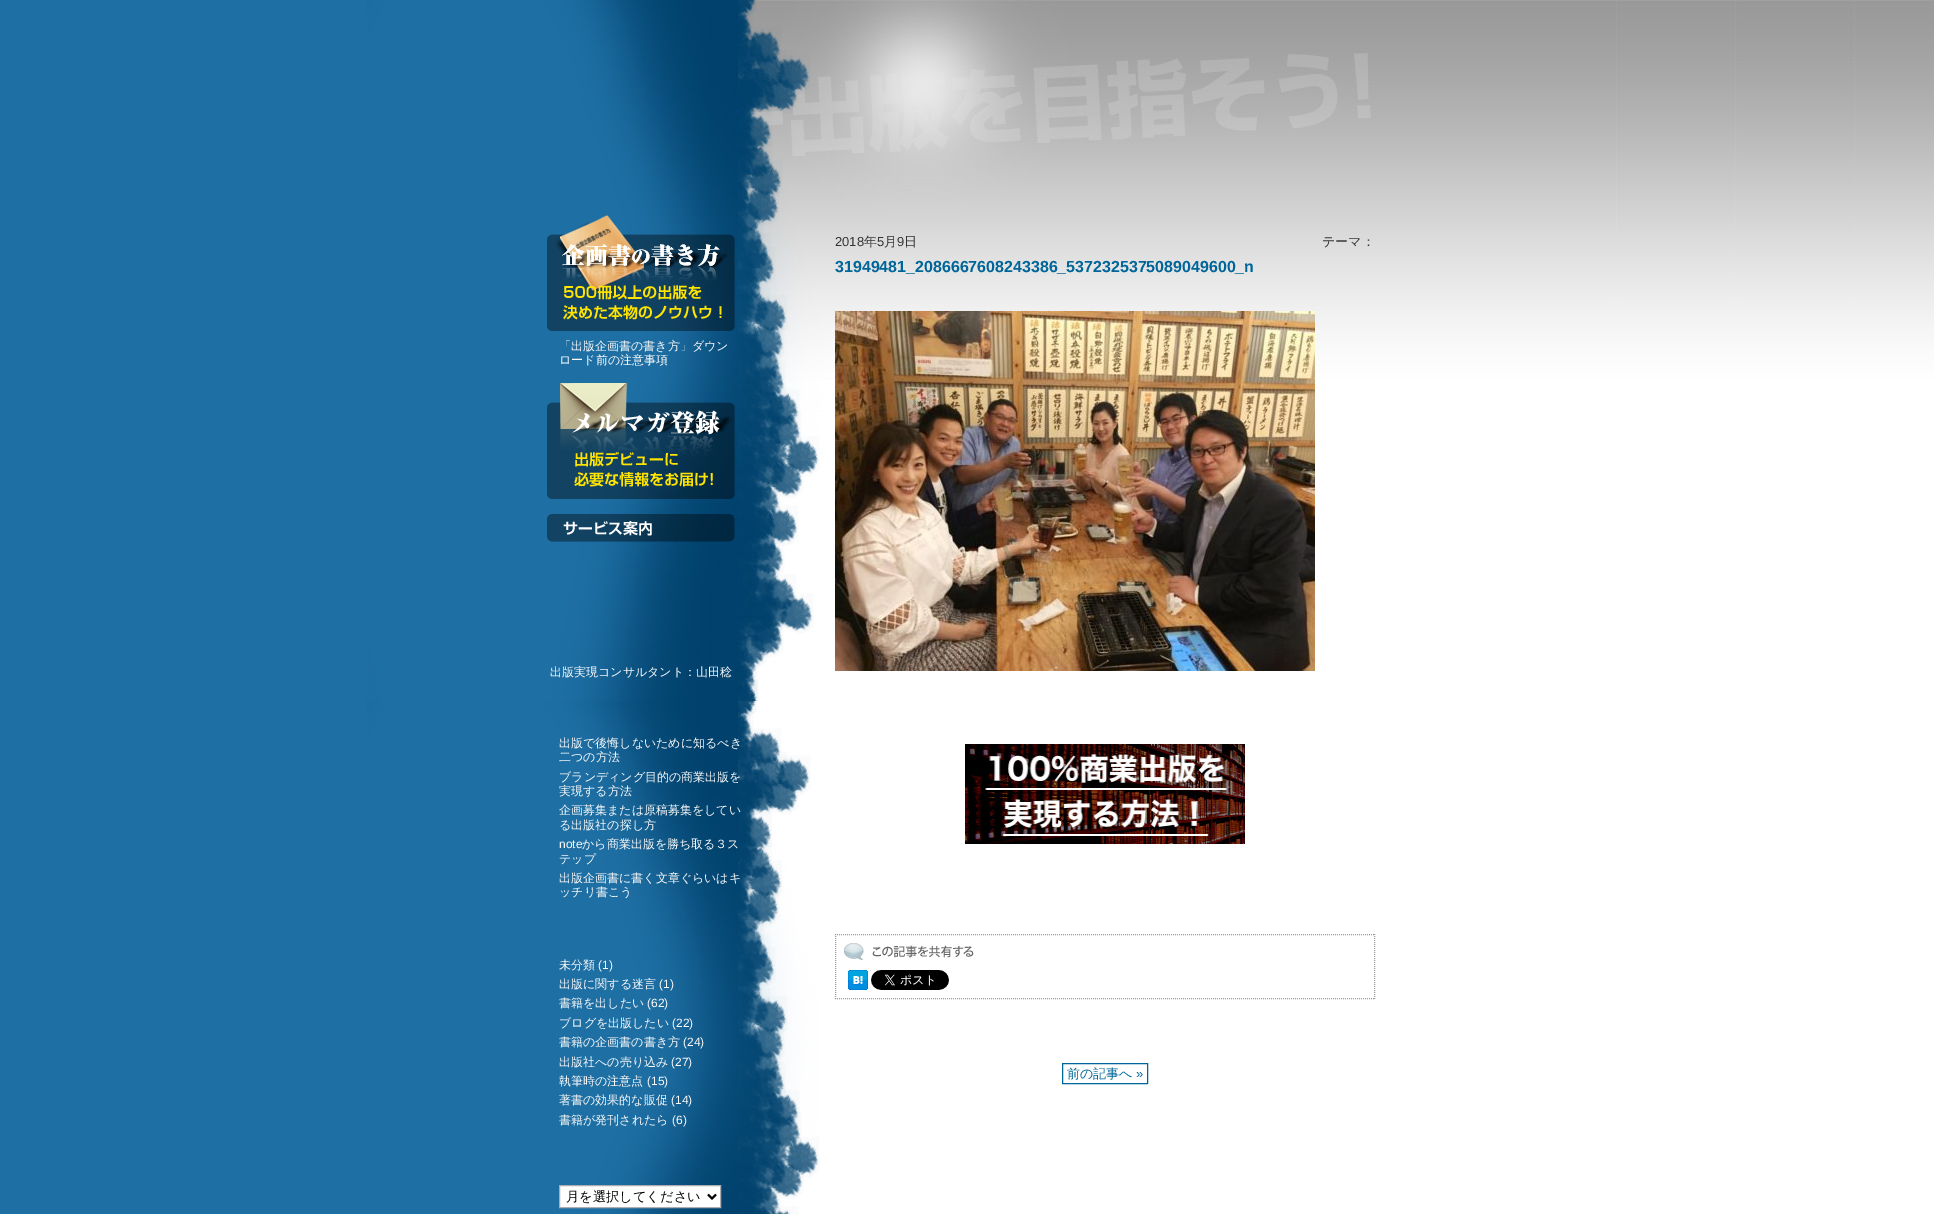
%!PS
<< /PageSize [1934 1214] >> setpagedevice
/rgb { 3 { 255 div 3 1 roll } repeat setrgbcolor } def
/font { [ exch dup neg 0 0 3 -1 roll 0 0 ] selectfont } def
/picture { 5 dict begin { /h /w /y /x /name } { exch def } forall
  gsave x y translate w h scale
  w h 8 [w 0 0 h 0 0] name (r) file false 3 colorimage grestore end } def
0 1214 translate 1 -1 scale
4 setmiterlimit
255 255 255 rgb
0 0 1934 1214 rectfill
(img/1.rgb) 0 0 820 1214 picture
(img/2.rgb) 646 0 1288 701 picture
(img/3.rgb) 547 215 188 116 picture
(img/4.rgb) 547 383 188 116 picture
(img/5.rgb) 547 514 188 28 picture
559.5 1185.5 moveto 720.5 1185.5 lineto 720.5 1207.5 lineto 559.5 1207.5 lineto closepath gsave fill grestore
171 173 179 rgb
stroke
0 0 0 rgb
2 setlinewidth
708 1194.5 moveto 712 1198.5 lineto 716 1194.5 lineto stroke
(img/6.rgb) 835 311 480 360 picture
(img/7.rgb) 965 744 280 100 picture
153 153 153 rgb
1 setlinewidth
[1 1] 0 setdash
835 934.5 moveto 1375 934.5 lineto stroke
1374.5 934 moveto 1374.5 999 lineto stroke
835 998.5 moveto 1375 998.5 lineto stroke
835.5 934 moveto 835.5 999 lineto stroke
(img/8.rgb) 844 943 130 17 picture
(img/9.rgb) 848 970 20 20 picture
(img/10.rgb) 871 970 78 20 picture
0 102 153 rgb
[] 0 setdash
1062.5 1063.5 85 20 rectstroke
/WenQuanYiZenHei-Medium 12 font
249 249 249 rgb
[
  [(「出版企画書の書き方」ダウン) 559 350]
  [(ロード前の注意事項) 559 364]
  [(出版実現コンサルタント：山田稔) 550 676]
  [(出版で後悔しないために知るべき) 559 747]
  [(二つの方法) 559 761]
  [(ブランディング目的の商業出版を) 559 781]
  [(実現する方法) 559 795]
  [(企画募集または原稿募集をしてい) 559 814]
  [(る出版社の探し方) 559 829]
] { aload pop moveto show } forall
/LiberationSans-Regular 12 font
559 848 moveto (note) show
/WenQuanYiZenHei-Medium 12 font
[
  [(から商業出版を勝ち取る３ス) 582 848]
  [(テップ) 559 863]
  [(出版企画書に書く文章ぐらいはキ) 559 882]
  [(ッチリ書こう) 559 896]
  [(未分類) 559 969]
] { aload pop moveto show } forall
/LiberationSans-Regular 12 font
598 969 moveto (\(1\)) show
/WenQuanYiZenHei-Medium 12 font
559 988 moveto (出版に関する迷言) show
/LiberationSans-Regular 12 font
659 988 moveto (\(1\)) show
/WenQuanYiZenHei-Medium 12 font
559 1007 moveto (書籍を出したい) show
/LiberationSans-Regular 12 font
647 1007 moveto (\(62\)) show
/WenQuanYiZenHei-Medium 12 font
559 1027 moveto (ブログを出版したい) show
/LiberationSans-Regular 12 font
672 1027 moveto (\(22\)) show
/WenQuanYiZenHei-Medium 12 font
559 1046 moveto (書籍の企画書の書き方) show
/LiberationSans-Regular 12 font
683 1046 moveto (\(24\)) show
/WenQuanYiZenHei-Medium 12 font
559 1066 moveto (出版社への売り込み) show
/LiberationSans-Regular 12 font
671 1066 moveto (\(27\)) show
/WenQuanYiZenHei-Medium 12 font
559 1085 moveto (執筆時の注意点) show
/LiberationSans-Regular 12 font
647 1085 moveto (\(15\)) show
/WenQuanYiZenHei-Medium 12 font
559 1104 moveto (著書の効果的な販促) show
/LiberationSans-Regular 12 font
671 1104 moveto (\(14\)) show
/WenQuanYiZenHei-Medium 12 font
559 1124 moveto (書籍が発刊されたら) show
/LiberationSans-Regular 12 font
672 1124 moveto (\(6\)) show
/WenQuanYiZenHei-Medium 13.25 font
0 0 0 rgb
566 1201 moveto (月を選択してください) show
/LiberationSans-Regular 13 font
51 51 51 rgb
835 246 moveto (2018) show
/WenQuanYiZenHei-Medium 13 font
864 246 moveto (年) show
/LiberationSans-Regular 13 font
877 246 moveto (5) show
/WenQuanYiZenHei-Medium 13 font
884 246 moveto (月) show
/LiberationSans-Regular 13 font
897 246 moveto (9) show
/WenQuanYiZenHei-Medium 13 font
904 246 moveto (日) show
1322 246 moveto (テーマ：) show
/LiberationSans-Bold 16 font
0 102 153 rgb
835 272 moveto (31949481_2086667608243386_5372325375089049600_n) show
/WenQuanYiZenHei-Medium 13 font
1067 1078 moveto (前の記事へ) show
/LiberationSans-Regular 13 font
1136 1078 moveto (») show
showpage
